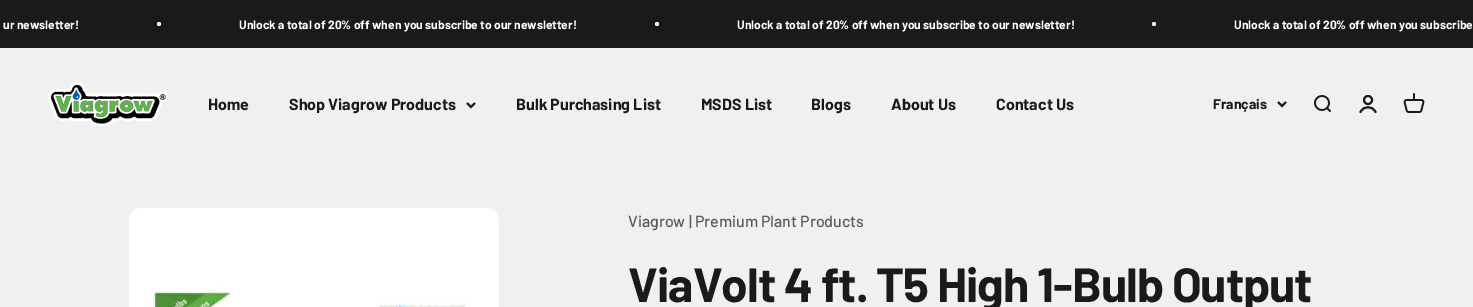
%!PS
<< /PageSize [1473 307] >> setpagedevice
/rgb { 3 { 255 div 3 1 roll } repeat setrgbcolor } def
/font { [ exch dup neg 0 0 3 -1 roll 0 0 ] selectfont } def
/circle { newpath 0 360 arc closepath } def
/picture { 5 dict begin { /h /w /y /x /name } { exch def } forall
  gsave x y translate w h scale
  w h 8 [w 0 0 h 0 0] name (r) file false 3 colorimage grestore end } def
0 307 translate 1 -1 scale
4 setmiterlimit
240 240 240 rgb
0 0 1473 307 rectfill
26 26 26 rgb
0 0 1473 48 rectfill
255 255 255 rgb
159 24 2 circle fill
657 24 2 circle fill
1154 24 2 circle fill
(img/1.rgb) 48 82 120 44 picture
26 26 26 rgb
2 setlinewidth
467 103 moveto 471 107 lineto 475 103 lineto stroke
1278 102 moveto 1282 106 lineto 1286 102 lineto stroke
(img/2.rgb) 1314 95 17 17 picture
1368 100 4 circle stroke
1 setlinecap
1360.5 112 moveto 1363.5 105.5 1372.5 105.5 1375.5 112 curveto stroke
(img/3.rgb) 1403 93 22 20 picture
(img/4.rgb) 129 208 370 99 picture
/Barlow-Bold 12 font
255 255 255 rgb
[
  [(ur newsletter!) 3 29]
  [(Unlock a total of 20% off when you subscribe to our newsletter!) 239 29]
  [(Unlock a total of 20% off when you subscribe to our newsletter!) 737 29]
  [(Unlock a total of 20% off when you subscribe) 1234 29]
] { aload pop moveto show } forall
/Barlow-Bold 16 font
26 26 26 rgb
[
  [(Home) 208 110]
  [(Shop Viagrow Products) 289 110]
  [(Bulk Purchasing List) 516 110]
  [(MSDS List) 701 110]
  [(Blogs) 811 110]
  [(About Us) 891 110]
  [(Contact Us) 996 110]
] { aload pop moveto show } forall
/Barlow-Bold 14 font
1213 109 moveto (Français) show
/Barlow-Medium 16 font
90 90 90 rgb
628 227 moveto (Viagrow | Premium Plant Products) show
/Barlow-Bold 48 font
26 26 26 rgb
628 302 moveto -0.95 0 (ViaVolt 4 ft. T5 High 1-Bulb Output) ashow
showpage
